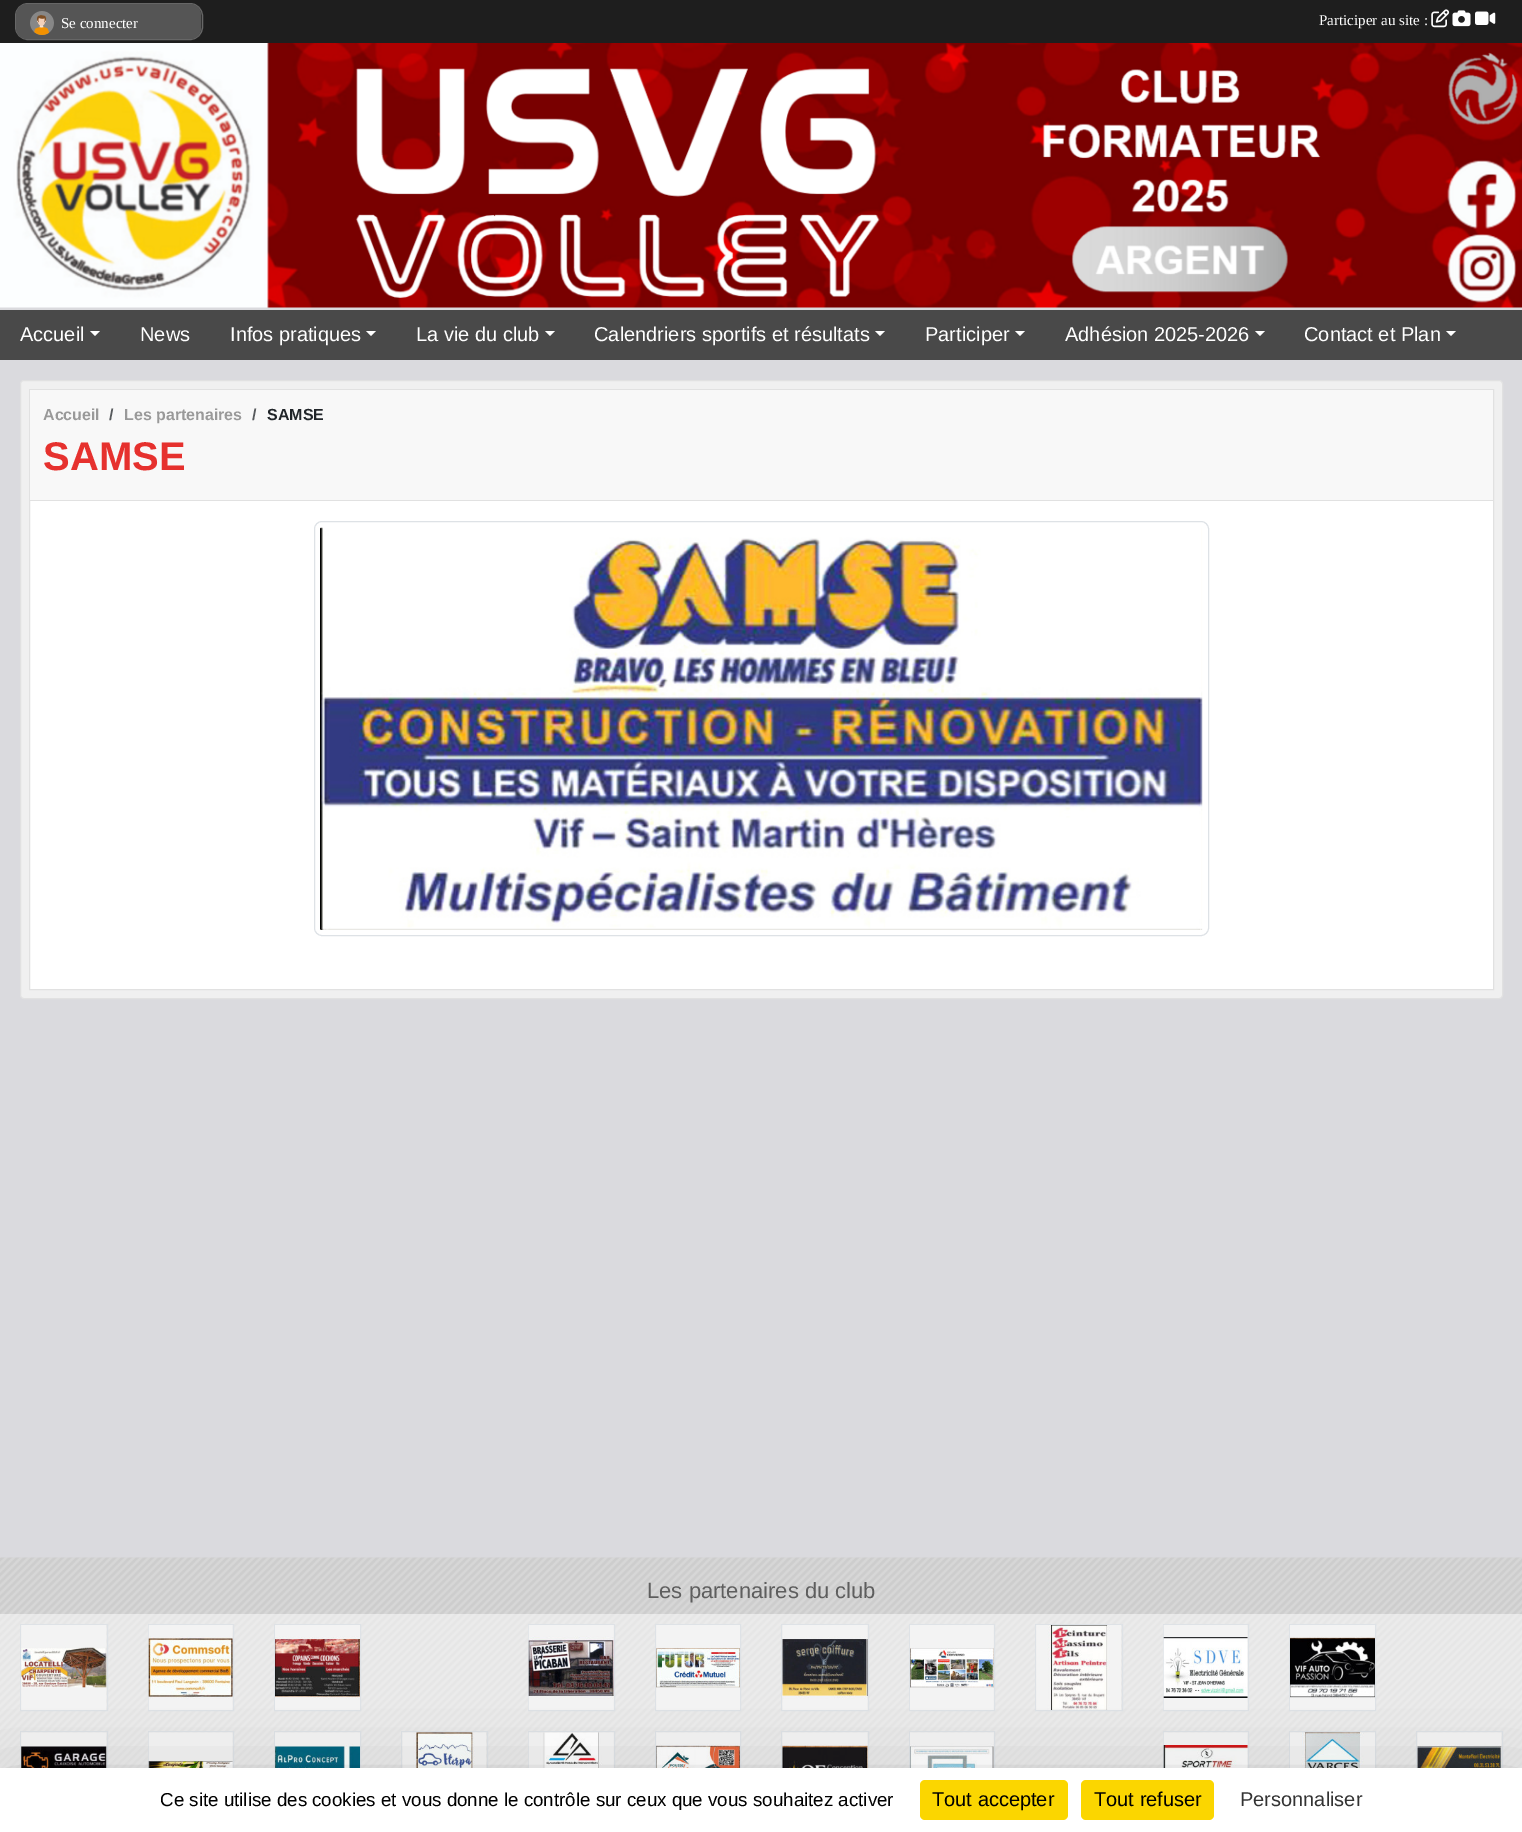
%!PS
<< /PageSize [1522 1832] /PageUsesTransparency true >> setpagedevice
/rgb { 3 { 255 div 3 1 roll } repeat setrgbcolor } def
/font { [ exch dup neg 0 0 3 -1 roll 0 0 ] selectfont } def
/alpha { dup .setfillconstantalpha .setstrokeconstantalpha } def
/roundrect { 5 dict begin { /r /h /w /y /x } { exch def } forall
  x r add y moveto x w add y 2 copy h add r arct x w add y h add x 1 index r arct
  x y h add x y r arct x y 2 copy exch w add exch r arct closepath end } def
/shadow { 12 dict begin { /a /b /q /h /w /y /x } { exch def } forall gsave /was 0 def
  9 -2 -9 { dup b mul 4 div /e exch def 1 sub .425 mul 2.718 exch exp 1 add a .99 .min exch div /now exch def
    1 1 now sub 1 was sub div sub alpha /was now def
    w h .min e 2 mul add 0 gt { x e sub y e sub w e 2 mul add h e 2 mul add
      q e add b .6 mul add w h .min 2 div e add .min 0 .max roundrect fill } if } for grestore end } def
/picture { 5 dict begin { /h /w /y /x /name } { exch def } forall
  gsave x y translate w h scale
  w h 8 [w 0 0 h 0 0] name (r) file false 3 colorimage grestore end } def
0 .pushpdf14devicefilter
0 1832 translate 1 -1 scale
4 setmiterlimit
218 218 222 rgb
0 0 1522 1832 rectfill
30 30 30 rgb
0 0 1522 43 rectfill
51 51 51 rgb
15.5 3.5 187 36 12.5 roundrect gsave fill grestore
102 102 102 rgb
stroke
85 85 85 rgb
16 4 185 35 11 roundrect fill
(img/1.rgb) 30 11 24 24 picture
(img/2.rgb) 1431 9 19 19 picture
(img/3.rgb) 1452 10 19 17 picture
(img/4.rgb) 1475 11 21 14 picture
(img/5.rgb) 0 43 1522 265 picture
73 73 73 rgb
0 310 1522 50 rectfill
255 255 255 rgb
90 331 moveto 100 331 lineto 95 336 lineto closepath fill
366 331 moveto 376 331 lineto 371 336 lineto closepath fill
545 331 moveto 555 331 lineto 550 336 lineto closepath fill
875 331 moveto 885 331 lineto 880 336 lineto closepath fill
1015 331 moveto 1025 331 lineto 1020 336 lineto closepath fill
1255 331 moveto 1265 331 lineto 1260 336 lineto closepath fill
1446 331 moveto 1456 331 lineto 1451 336 lineto closepath fill
240 240 240 rgb
20.5 380.5 1482 618 3.5 roundrect gsave fill grestore
225 225 225 rgb
stroke
255 255 255 rgb
30 501 1463 488 rectfill
225 225 225 rgb
29.5 389.5 1464 600 rectstroke
248 248 248 rgb
30 390 1463 110 rectfill
225 225 225 rgb
30 500 1463 1 rectfill
222 226 230 rgb
314.5 521.5 894 414 7.5 roundrect stroke
(img/6.rgb) 320 527 883 403 picture
(img/7.rgb) 0 1557 1522 211 picture
0.5 alpha
255 255 255 rgb
0 1614 128 107 rectfill
1 alpha
222 226 230 rgb
20.5 1624.5 87 86 rectstroke
(img/8.rgb) 21 1625 86 85 picture
0.5 alpha
255 255 255 rgb
128 1614 126 107 rectfill
1 alpha
222 226 230 rgb
148.5 1624.5 85 86 rectstroke
(img/9.rgb) 148 1625 85 85 picture
0.5 alpha
255 255 255 rgb
254 1614 127 107 rectfill
1 alpha
222 226 230 rgb
274.5 1624.5 86 86 rectstroke
(img/10.rgb) 275 1625 85 85 picture
0.5 alpha
255 255 255 rgb
381 1614 127 107 rectfill
508 1614 127 107 rectfill
1 alpha
222 226 230 rgb
528.5 1624.5 86 86 rectstroke
(img/11.rgb) 528 1625 86 85 picture
0.5 alpha
255 255 255 rgb
635 1614 126 107 rectfill
1 alpha
222 226 230 rgb
655.5 1624.5 85 86 rectstroke
(img/12.rgb) 656 1625 84 85 picture
0.5 alpha
255 255 255 rgb
761 1614 128 107 rectfill
1 alpha
222 226 230 rgb
781.5 1624.5 87 86 rectstroke
(img/13.rgb) 782 1625 86 85 picture
0.5 alpha
255 255 255 rgb
889 1614 126 107 rectfill
1 alpha
222 226 230 rgb
909.5 1624.5 85 86 rectstroke
(img/14.rgb) 910 1625 84 85 picture
0.5 alpha
255 255 255 rgb
1015 1614 128 107 rectfill
1 alpha
222 226 230 rgb
1035.5 1624.5 87 86 rectstroke
(img/15.rgb) 1036 1625 85 85 picture
0.5 alpha
255 255 255 rgb
1143 1614 126 107 rectfill
1 alpha
222 226 230 rgb
1163.5 1624.5 85 86 rectstroke
(img/16.rgb) 1163 1625 85 85 picture
0.5 alpha
255 255 255 rgb
1269 1614 127 107 rectfill
1 alpha
222 226 230 rgb
1289.5 1624.5 86 86 rectstroke
(img/17.rgb) 1290 1625 85 85 picture
0.5 alpha
255 255 255 rgb
1396 1614 126 107 rectfill
0 1721 128 47 rectfill
1 alpha
222 226 230 rgb
20.5 1731.5 87 86 rectstroke
(img/18.rgb) 21 1732 86 36 picture
0.5 alpha
255 255 255 rgb
128 1721 126 47 rectfill
1 alpha
222 226 230 rgb
148.5 1731.5 85 86 rectstroke
(img/19.rgb) 148 1732 85 36 picture
0.5 alpha
255 255 255 rgb
254 1721 127 47 rectfill
1 alpha
222 226 230 rgb
274.5 1731.5 86 86 rectstroke
(img/20.rgb) 275 1732 85 36 picture
0.5 alpha
255 255 255 rgb
381 1721 127 47 rectfill
1 alpha
222 226 230 rgb
401.5 1731.5 86 86 rectstroke
(img/21.rgb) 402 1732 84 36 picture
0.5 alpha
255 255 255 rgb
508 1721 127 47 rectfill
1 alpha
222 226 230 rgb
528.5 1731.5 86 86 rectstroke
(img/22.rgb) 528 1732 86 36 picture
0.5 alpha
255 255 255 rgb
635 1721 126 47 rectfill
1 alpha
222 226 230 rgb
655.5 1731.5 85 86 rectstroke
(img/23.rgb) 656 1732 84 36 picture
0.5 alpha
255 255 255 rgb
761 1721 128 47 rectfill
1 alpha
222 226 230 rgb
781.5 1731.5 87 86 rectstroke
(img/24.rgb) 782 1732 86 36 picture
0.5 alpha
255 255 255 rgb
889 1721 126 47 rectfill
1 alpha
222 226 230 rgb
909.5 1731.5 85 86 rectstroke
(img/25.rgb) 910 1732 84 36 picture
0.5 alpha
255 255 255 rgb
1015 1721 128 47 rectfill
1143 1721 126 47 rectfill
1 alpha
222 226 230 rgb
1163.5 1731.5 85 86 rectstroke
(img/26.rgb) 1163 1732 85 36 picture
0.5 alpha
255 255 255 rgb
1269 1721 127 47 rectfill
1 alpha
222 226 230 rgb
1289.5 1731.5 86 86 rectstroke
(img/27.rgb) 1290 1732 85 36 picture
0.5 alpha
255 255 255 rgb
1396 1721 126 47 rectfill
1 alpha
222 226 230 rgb
1416.5 1731.5 86 86 rectstroke
(img/28.rgb) 1417 1732 85 36 picture
0 0 0 rgb
0 1793 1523 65 0 37.5 0.25 shadow
255 255 255 rgb
0 1768 1522 64 rectfill
251 214 0 rgb
920 1780 148 40 5 roundrect fill
1081 1780 133 40 5 roundrect fill
/LiberationSerif-Regular 15 font
255 255 255 rgb
61 28 moveto (Se connecter) show
1319 25 moveto (Participer au site :) show
/LiberationSans-Regular 20 font
[
  [(Accueil) 20 341]
  [(News) 140 341]
  [(Infos pratiques) 230 341]
  [(La vie du club) 416 341]
  [(Calendriers sportifs et résultats) 594 341]
  [(Participer) 925 341]
  [(Adhésion 2025-2026) 1065 341]
  [(Contact et Plan) 1304 341]
] { aload pop moveto show } forall
/LiberationSans-Bold 16 font
153 153 153 rgb
43 420 moveto (Accueil) show
87 90 93 rgb
109 420 moveto (/) show
153 153 153 rgb
124 420 moveto (Les partenaires) show
87 90 93 rgb
252 420 moveto (/) show
33 37 41 rgb
267 420 moveto (SAMSE) show
/LiberationSans-Bold 40 font
230 49 46 rgb
43 470 moveto (SAMSE) show
/LiberationSans-Regular 22 font
94 94 94 rgb
647 1598 moveto (Les partenaires du club) show
/LiberationSans-Regular 18.75 font
0 0 0 rgb
160 1806 moveto (Ce site utilise des cookies et vous donne le contrôle sur ceux que vous souhaitez activer) show
/LiberationSans-Regular 20 font
932 1806 moveto (Tout accepter) show
1094 1806 moveto (Tout refuser) show
51 51 51 rgb
1240 1806 moveto (Personnaliser) show
.poppdf14devicefilter showpage
